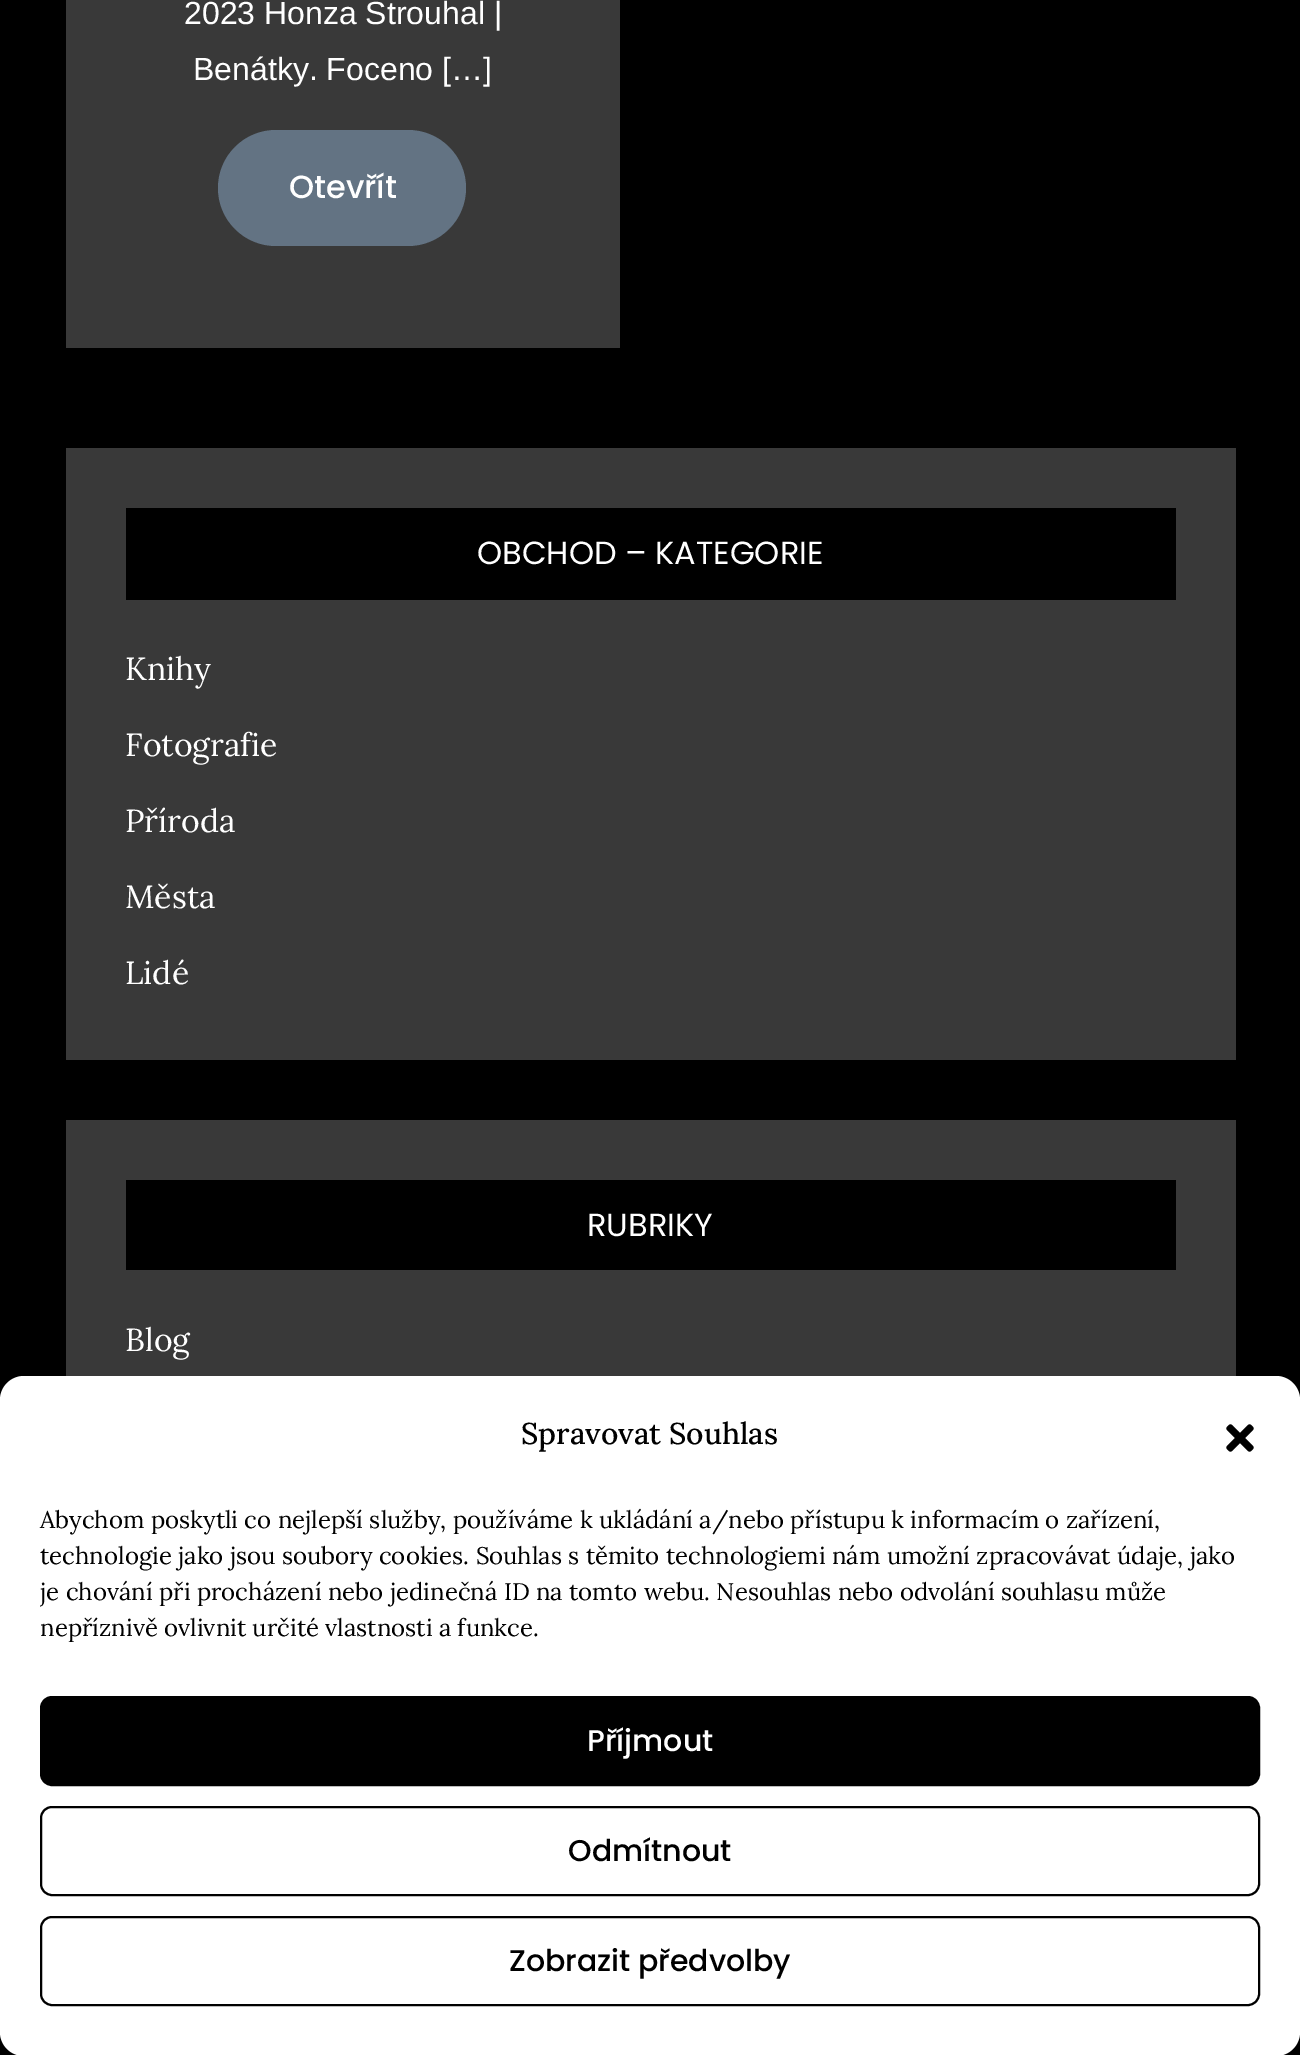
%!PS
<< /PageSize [1300 2055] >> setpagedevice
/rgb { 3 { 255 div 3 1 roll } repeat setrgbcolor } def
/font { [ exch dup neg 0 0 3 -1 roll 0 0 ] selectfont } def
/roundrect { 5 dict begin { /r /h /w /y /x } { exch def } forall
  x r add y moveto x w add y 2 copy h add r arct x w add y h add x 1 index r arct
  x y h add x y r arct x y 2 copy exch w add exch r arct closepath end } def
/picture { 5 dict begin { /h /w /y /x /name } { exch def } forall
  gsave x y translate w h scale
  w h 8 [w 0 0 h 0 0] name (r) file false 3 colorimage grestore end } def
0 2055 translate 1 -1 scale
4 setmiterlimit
0 0 0 rgb
0 0 1300 2055 rectfill
57 57 57 rgb
66 0 554 348 rectfill
99 115 131 rgb
218 130 248 116 58 roundrect fill
[
  [66 448 1170 612 57 57 57]
  [126 508 1050 92 0 0 0]
  [66 1120 1170 256 57 57 57]
  [126 1180 1050 90 0 0 0]
] { aload pop rgb rectfill } forall
255 255 255 rgb
0 1376 1300 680 24 roundrect fill
(img/1.rgb) 1226 1424 28 28 picture
0 0 0 rgb
41 1697 1218 88 11 roundrect gsave fill grestore
2 setlinewidth
stroke
41 1807 1218 88 11 roundrect stroke
41 1917 1218 88 11 roundrect stroke
/LiberationSans-Regular 32 font
255 255 255 rgb
184 24 moveto (2023 Honza Strouhal |) show
193 80 moveto (Benátky. Foceno […]) show
/Poppins-Medium 32 font
289 198 moveto (Otevřít) show
/Poppins-Regular 32 font
477 564 moveto (OBCHOD – KATEGORIE) show
/Lora-Regular 32 font
[
  [(Knihy) 125 680]
  [(Fotografie) 125 756]
  [(Příroda) 125 832]
  [(Města) 125 908]
  [(Lidé) 125 984]
] { aload pop moveto show } forall
/Poppins-Regular 32 font
587 1236 moveto (RUBRIKY) show
/Lora-Regular 32 font
125 1351 moveto (Blog) show
/Lora-Medium 30 font
0 0 0 rgb
521 1444 moveto (Spravovat Souhlas) show
/Lora-Regular 24 font
40 1528 moveto (Abychom poskytli co nejlepší služby, používáme k ukládání a/nebo přístupu k informacím o zařízení,) show
40 1564 moveto (technologie jako jsou soubory cookies. Souhlas s těmito technologiemi nám umožní zpracovávat údaje, jako) show
gsave
40 1502 1220 154 rectclip
40 1600 moveto (je chování při procházení nebo jedinečná ID na tomto webu. Nesouhlas nebo odvolání souhlasu může) show
grestore
40 1636 moveto (nepříznivě ovlivnit určité vlastnosti a funkce.) show
/Poppins-Medium 30 font
255 255 255 rgb
587 1751 moveto (Příjmout) show
0 0 0 rgb
568 1861 moveto (Odmítnout) show
509 1971 moveto (Zobrazit předvolby) show
showpage
